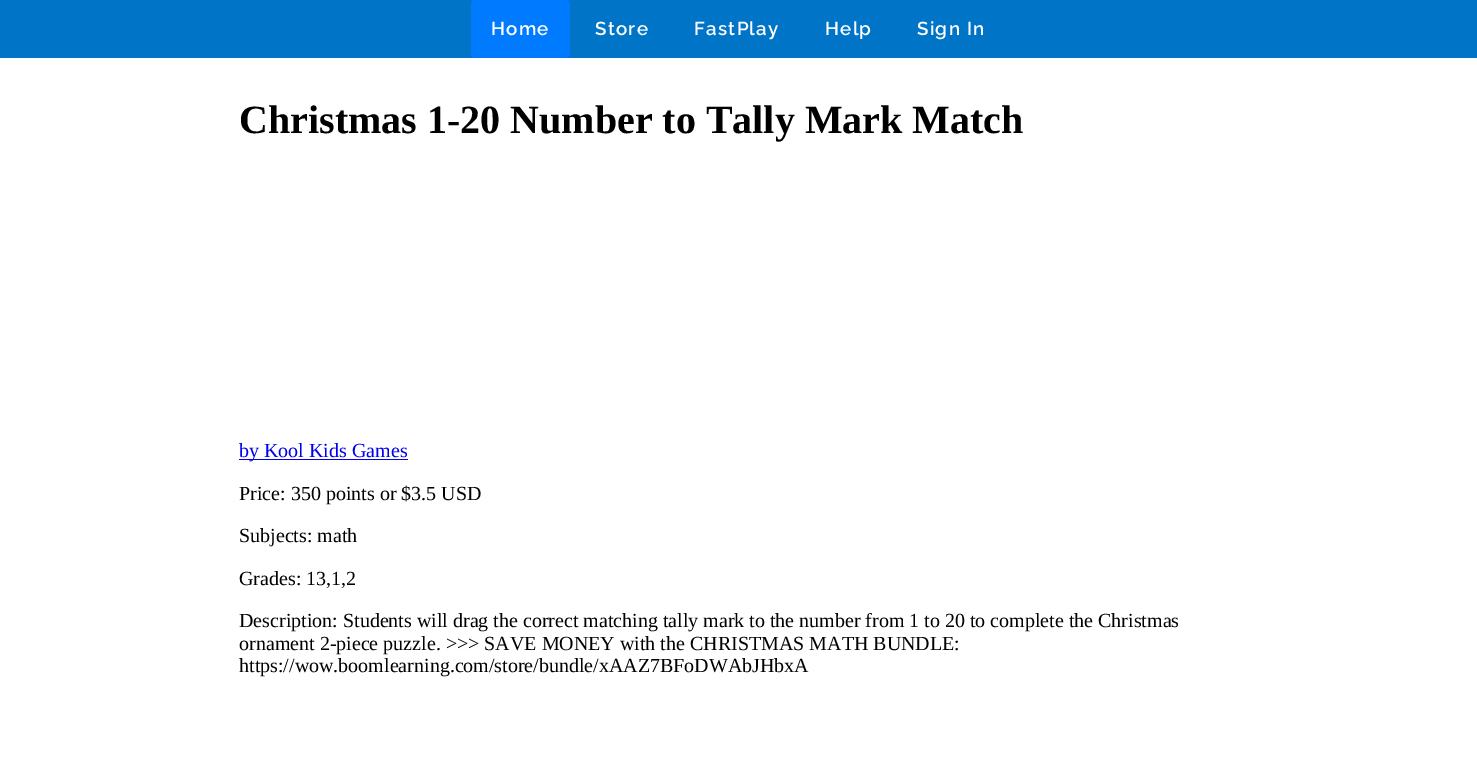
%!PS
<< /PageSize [1477 782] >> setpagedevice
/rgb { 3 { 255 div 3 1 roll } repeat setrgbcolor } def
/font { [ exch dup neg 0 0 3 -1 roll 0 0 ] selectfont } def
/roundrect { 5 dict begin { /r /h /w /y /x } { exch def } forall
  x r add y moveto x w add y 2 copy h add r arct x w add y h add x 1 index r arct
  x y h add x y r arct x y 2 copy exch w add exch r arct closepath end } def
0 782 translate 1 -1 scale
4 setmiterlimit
255 255 255 rgb
0 0 1477 782 rectfill
0 116 199 rgb
0 0 1477 58 rectfill
0 123 255 rgb
471 0 99 58 4 roundrect fill
0 0 238 rgb
239 459 169 1 rectfill
/Raleway-SemiBold 18.75 font
255 255 255 rgb
491 35 moveto 1.25 0 (Home) ashow
595 35 moveto 1.25 0 (Store) ashow
694 35 moveto 1.25 0 (FastPlay) ashow
825 35 moveto 1.25 0 (Help) ashow
917 35 moveto 1.25 0 (Sign In) ashow
/LiberationSerif-Bold 40 font
0 0 0 rgb
239 133 moveto (Christmas 1-20 Number to Tally Mark Match) show
/LiberationSerif-Regular 20 font
0 0 238 rgb
239 457 moveto (by Kool Kids Games) show
0 0 0 rgb
[
  [(Price: 350 points or $3.5 USD) 239 500]
  [(Subjects: math) 239 542]
  [(Grades: 13,1,2) 239 585]
  [(Description: Students will drag the correct matching tally mark to the number from 1 to 20 to complete the Christmas) 239 627]
  [(ornament 2-piece puzzle. >>> SAVE MONEY with the CHRISTMAS MATH BUNDLE:) 239 650]
  [(https://wow.boomlearning.com/store/bundle/xAAZ7BFoDWAbJHbxA) 239 672]
] { aload pop moveto show } forall
showpage
